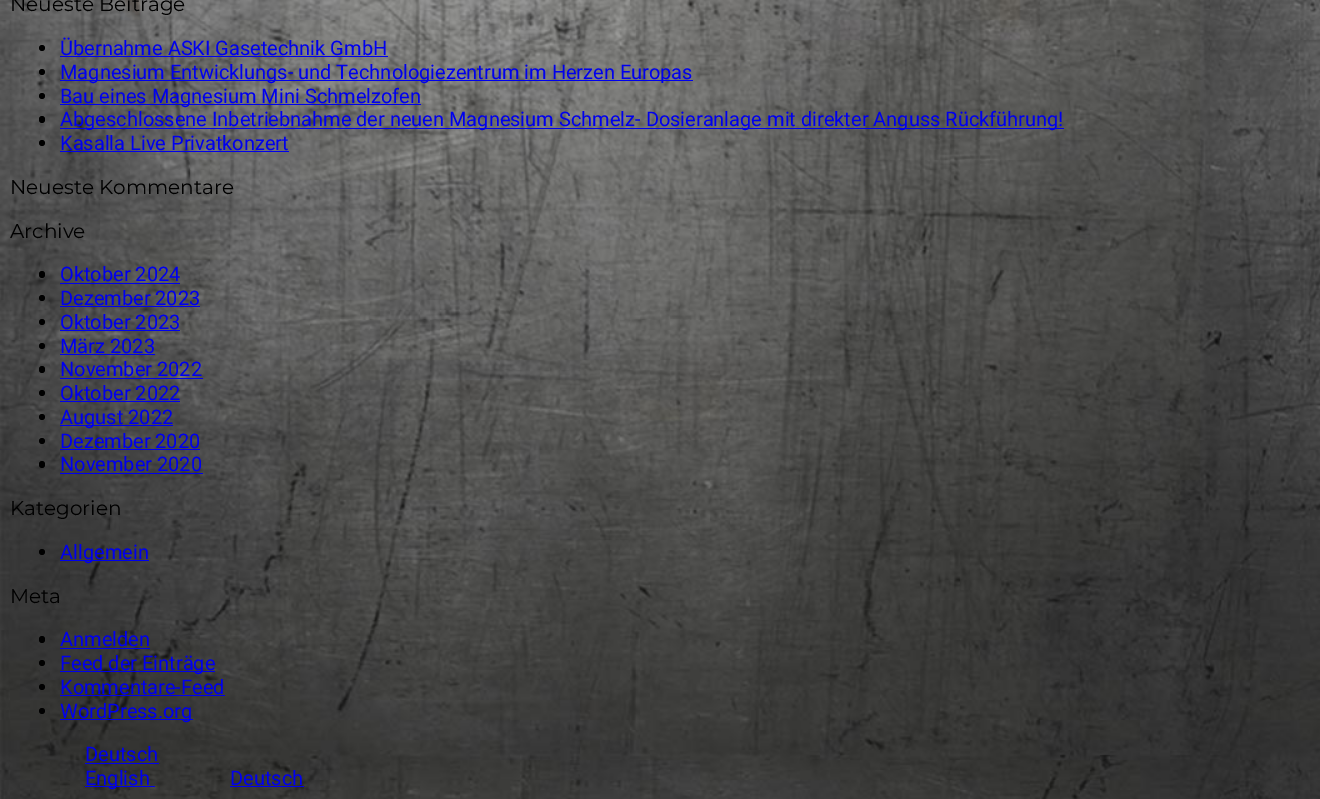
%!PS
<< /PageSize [1320 799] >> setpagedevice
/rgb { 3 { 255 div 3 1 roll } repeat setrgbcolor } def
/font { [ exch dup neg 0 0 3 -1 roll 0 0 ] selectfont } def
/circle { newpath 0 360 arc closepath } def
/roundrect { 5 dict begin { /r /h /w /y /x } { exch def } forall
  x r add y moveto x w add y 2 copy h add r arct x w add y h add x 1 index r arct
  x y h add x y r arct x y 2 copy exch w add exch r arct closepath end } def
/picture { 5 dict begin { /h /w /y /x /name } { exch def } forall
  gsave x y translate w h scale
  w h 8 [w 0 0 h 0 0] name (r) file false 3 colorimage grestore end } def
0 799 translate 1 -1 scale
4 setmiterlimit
255 255 255 rgb
0 0 1320 799 rectfill
(img/1.rgb) 0 0 1320 799 picture
0 0 0 rgb
42 48 3 circle fill
0 0 238 rgb
60 56 328 1 rectfill
0 0 0 rgb
42 72 3 circle fill
0 0 238 rgb
60 80 633 1 rectfill
0 0 0 rgb
42 96 3 circle fill
0 0 238 rgb
60 104 361 1 rectfill
0 0 0 rgb
39 116 6 7 3 roundrect fill
0 0 238 rgb
60 128 1004 1 rectfill
0 0 0 rgb
42 143 3 circle fill
0 0 238 rgb
60 151 229 1 rectfill
0 0 0 rgb
39 271 6 7 3 roundrect fill
0 0 238 rgb
60 283 120 1 rectfill
0 0 0 rgb
42 298 3 circle fill
0 0 238 rgb
60 306 140 1 rectfill
0 0 0 rgb
42 322 3 circle fill
0 0 238 rgb
60 330 120 1 rectfill
0 0 0 rgb
42 346 3 circle fill
0 0 238 rgb
60 354 95 1 rectfill
0 0 0 rgb
39 366 6 7 3 roundrect fill
0 0 238 rgb
60 378 143 1 rectfill
0 0 0 rgb
42 393 3 circle fill
0 0 238 rgb
60 401 120 1 rectfill
0 0 0 rgb
42 417 3 circle fill
0 0 238 rgb
60 425 113 1 rectfill
0 0 0 rgb
42 441 3 circle fill
0 0 238 rgb
60 449 140 1 rectfill
0 0 0 rgb
39 461 6 7 3 roundrect fill
0 0 238 rgb
60 473 143 1 rectfill
0 0 0 rgb
42 552 3 circle fill
0 0 238 rgb
60 560 89 1 rectfill
0 0 0 rgb
39 636 6 7 3 roundrect fill
0 0 238 rgb
60 648 90 1 rectfill
0 0 0 rgb
42 663 3 circle fill
0 0 238 rgb
60 671 155 1 rectfill
0 0 0 rgb
42 687 3 circle fill
0 0 238 rgb
60 695 165 1 rectfill
0 0 0 rgb
42 711 3 circle fill
[
  [60 719 133 1 0 0 238]
  [85 763 74 1 0 0 238]
  [85 786 70 1 0 0 238]
  [230 786 74 1 0 0 238]
] { aload pop rgb rectfill } forall
/Montserrat-Regular 20 font
0 0 0 rgb
10 11 moveto (Neueste Beiträge) show
/Roboto-Regular 20 font
0 0 238 rgb
[
  [(Übernahme ASKI Gasetechnik GmbH) 60 55]
  [(Magnesium Entwicklungs- und Technologiezentrum im Herzen Europas) 60 79]
  [(Bau eines Magnesium Mini Schmelzofen) 60 103]
  [(Abgeschlossene Inbetriebnahme der neuen Magnesium Schmelz- Dosieranlage mit direkter Anguss Rückführung!) 60 126]
  [(Kasalla Live Privatkonzert) 60 150]
] { aload pop moveto show } forall
/Montserrat-Regular 20 font
0 0 0 rgb
10 194 moveto (Neueste Kommentare) show
10 238 moveto (Archive) show
/Roboto-Regular 20 font
0 0 238 rgb
[
  [(Oktober 2024) 60 281]
  [(Dezember 2023) 60 305]
  [(Oktober 2023) 60 329]
  [(März 2023) 60 353]
  [(November 2022) 60 376]
  [(Oktober 2022) 60 400]
  [(August 2022) 60 424]
  [(Dezember 2020) 60 448]
  [(November 2020) 60 471]
] { aload pop moveto show } forall
/Montserrat-Regular 20 font
0 0 0 rgb
10 515 moveto (Kategorien) show
/Roboto-Regular 20 font
0 0 238 rgb
60 559 moveto (Allgemein) show
/Montserrat-Regular 20 font
0 0 0 rgb
10 603 moveto (Meta) show
/Roboto-Regular 20 font
0 0 238 rgb
[
  [(Anmelden) 60 646]
  [(Feed der Einträge) 60 670]
  [(Kommentare-Feed) 60 694]
  [(WordPress.org) 60 718]
  [(Deutsch) 85 761]
  [(English) 85 785]
  [(Deutsch) 230 785]
] { aload pop moveto show } forall
showpage
